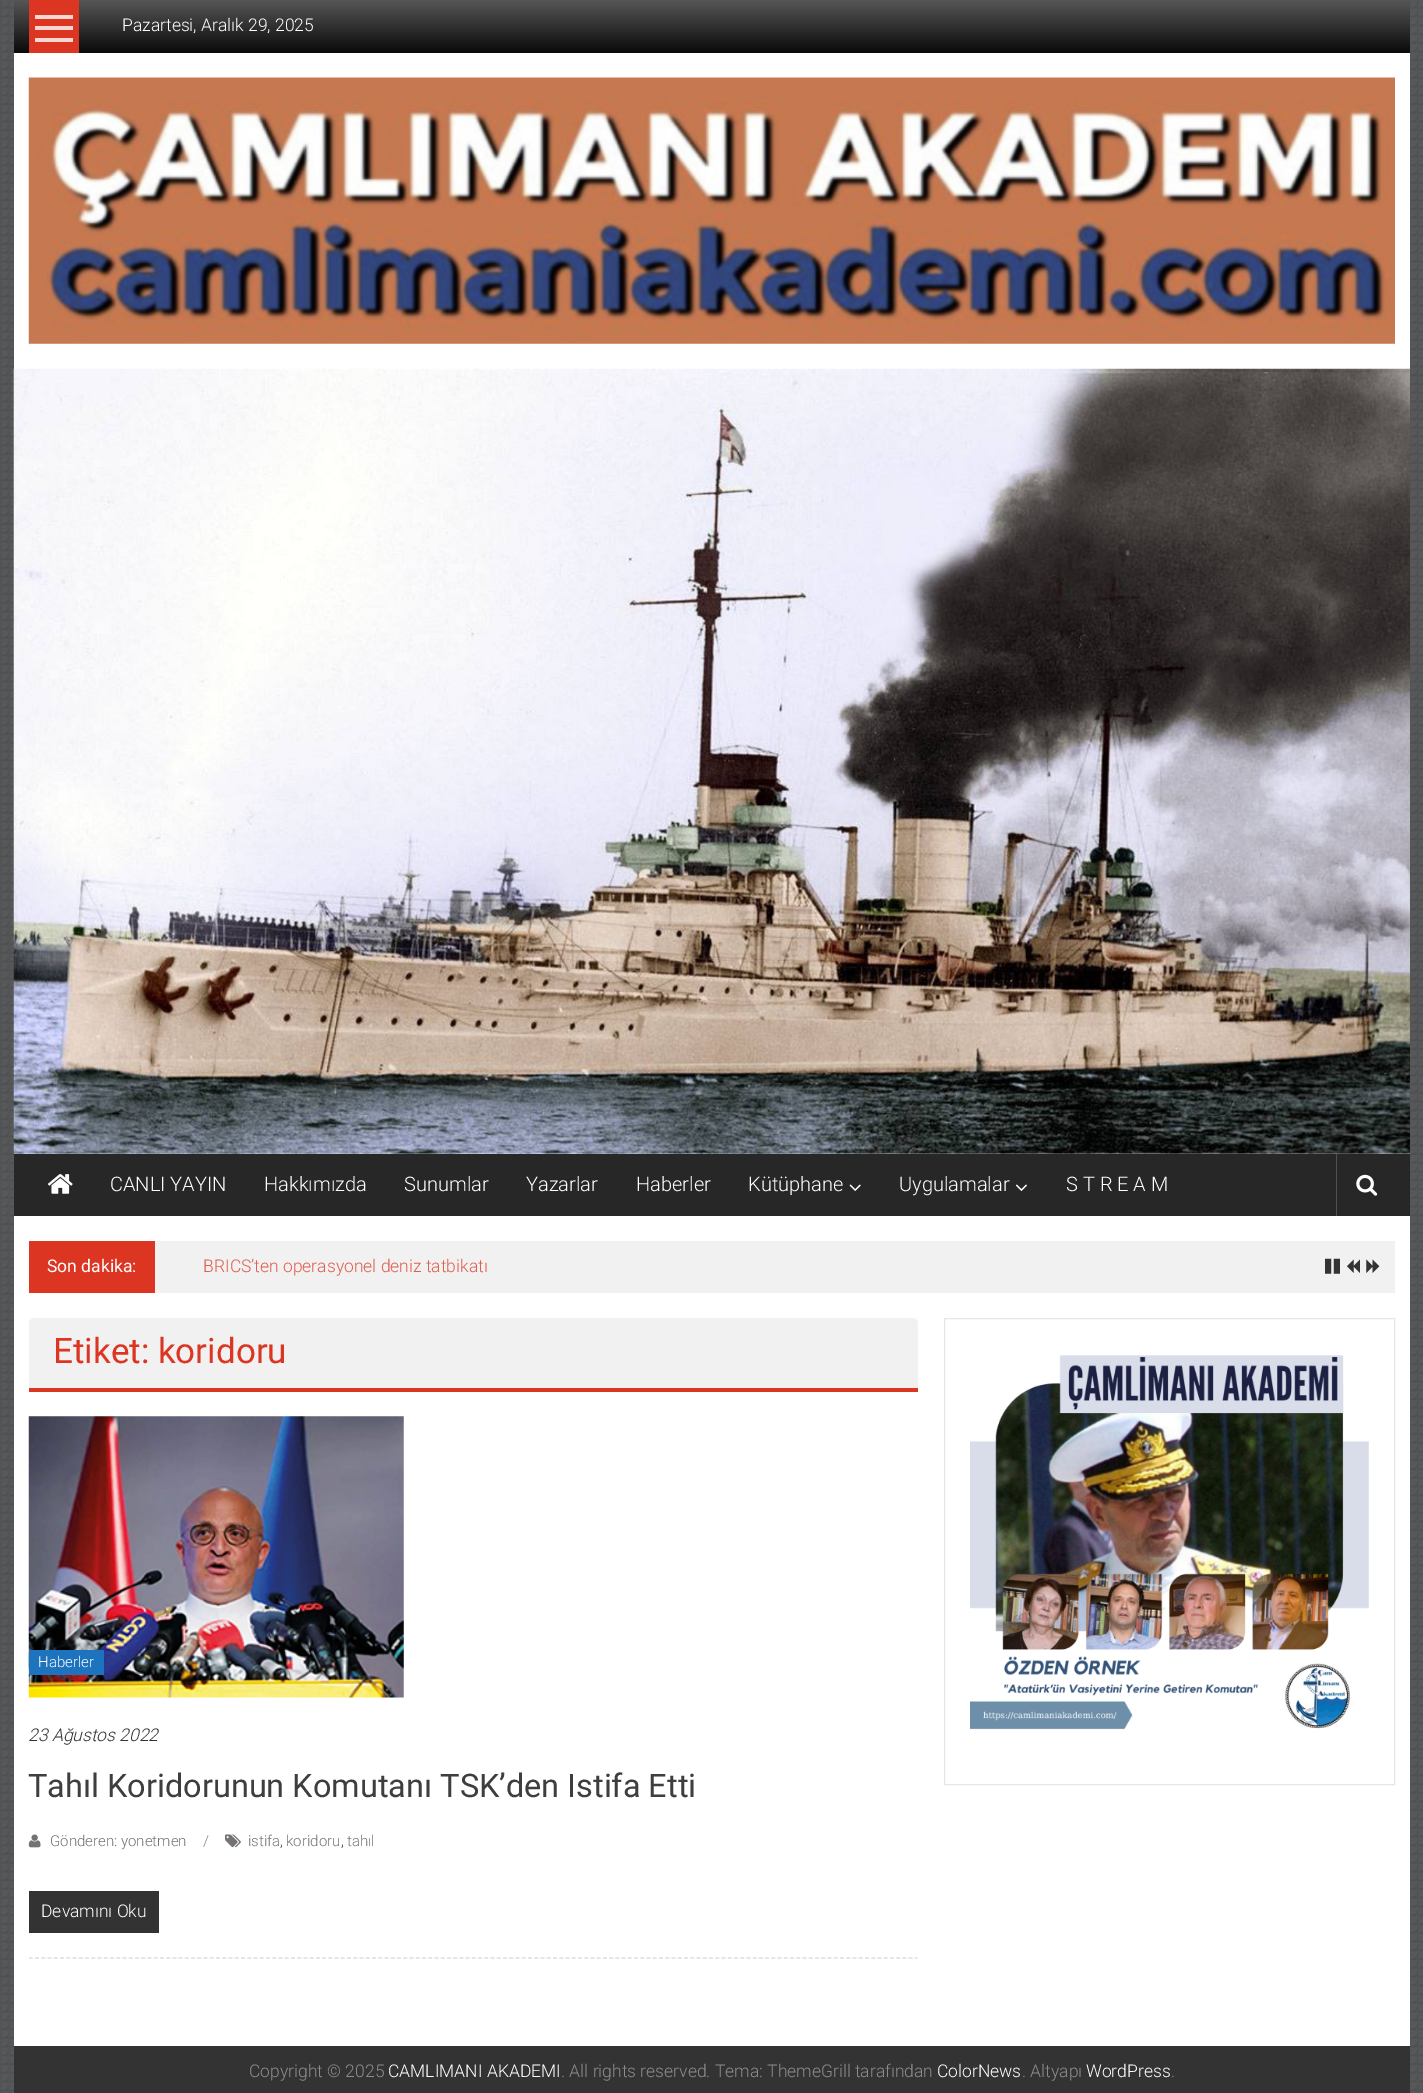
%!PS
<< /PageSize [1423 2093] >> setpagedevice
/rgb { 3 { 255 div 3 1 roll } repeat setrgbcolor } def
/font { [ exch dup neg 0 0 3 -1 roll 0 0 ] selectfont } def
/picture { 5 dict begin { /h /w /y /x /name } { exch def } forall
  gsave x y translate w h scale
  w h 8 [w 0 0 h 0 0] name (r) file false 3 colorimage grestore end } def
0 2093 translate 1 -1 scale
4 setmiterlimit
255 255 255 rgb
0 0 1423 2093 rectfill
(img/1.rgb) 0 0 1423 2093 picture
14 53 1396 1993 rectfill
gsave 14 0 moveto 1410 0 lineto 1410 53 lineto 14 53 lineto closepath clip newpath
<< /ShadingType 2 /ColorSpace /DeviceRGB /Coords [712 0 712 53] /Extend [true true] /Function << /FunctionType 2 /Domain [0 1] /C0 [0.337 0.337 0.337] /C1 [0.039 0.039 0.039] /N 1 >> >> shfill grestore
[
  [29 0 50 53 220 53 34]
  [35 15 38 4 248 215 211]
  [35 26 38 4 248 215 211]
  [35 38 38 4 248 215 211]
] { aload pop rgb rectfill } forall
(img/2.rgb) 28 77 1367 267 picture
(img/3.rgb) 13 368 1397 786 picture
39 39 39 rgb
14 1154 1396 62 rectfill
(img/4.rgb) 48 1174 25 20 picture
(img/5.rgb) 849 1184 12 7 picture
(img/6.rgb) 1015 1184 12 7 picture
82 82 82 rgb
1336 1154 1 62 rectfill
(img/7.rgb) 1356 1174 22 22 picture
241 241 241 rgb
155 1241 1240 52 rectfill
220 53 34 rgb
29 1241 126 52 rectfill
(img/8.rgb) 1325 1258 15 16 picture
(img/9.rgb) 1347 1259 13 14 picture
(img/10.rgb) 1366 1259 14 14 picture
241 241 241 rgb
35 1318 moveto 912 1318 lineto 915.5 1318 918 1320.5 918 1324 curveto 918 1391 lineto 29 1391 lineto 29 1324 lineto 29 1320.5 31.5 1318 35 1318 curveto closepath fill
220 53 34 rgb
29 1388 889 4 rectfill
221 221 221 rgb
1.2 setlinewidth
[3.75 2.49] 0 setdash
29 1958 moveto 917.5 1958 lineto stroke
(img/11.rgb) 28 1416 376 282 picture
30 115 190 rgb
29 1650 75 25 rectfill
(img/12.rgb) 28 1834 13 14 picture
(img/13.rgb) 225 1834 16 14 picture
51 51 51 rgb
29 1891 130 42 rectfill
230 230 230 rgb
1 setlinewidth
[] 0 setdash
944.5 1318.5 450 466 rectstroke
(img/14.rgb) 970 1355 399 375 picture
51 51 51 rgb
14 2046 1396 47 rectfill
/Roboto-Light 17.5 font
255 255 255 rgb
122 31 moveto (Pazartesi, Aralık 29, 2025) show
/Roboto-Light 20 font
[
  [(CANLI YAYIN) 110 1191]
  [(Hakkımızda) 264 1191]
  [(Sunumlar) 404 1191]
  [(Yazarlar) 526 1191]
  [(Haberler) 636 1191]
  [(Kütüphane) 748 1191]
  [(Uygulamalar) 899 1191]
  [(S T R E A M) 1066 1191]
] { aload pop moveto show } forall
/Roboto-Regular 17.5 font
47 1272 moveto (Son dakika:) show
/Roboto-Light 17.5 font
225 94 79 rgb
203 1272 moveto (BRICS’ten operasyonel deniz tatbikatı) show
/Roboto-Regular 35 font
220 53 34 rgb
53 1363 moveto (Etiket: koridoru) show
/Roboto-Light 15 font
255 255 255 rgb
38 1667 moveto (Haberler) show
/Roboto-LightItalic 17.5 font
51 51 51 rgb
28 1741 moveto (23 Ağustos 2022) show
/Roboto-Regular 32.5 font
62 62 62 rgb
28 1797 moveto (Tahıl Koridorunun Komutanı TSK’den Istifa Etti) show
/Roboto-Light 15 font
118 114 114 rgb
50 1846 moveto (Gönderen: yonetmen) show
128 128 128 rgb
203 1846 moveto (/) show
118 114 114 rgb
248 1846 moveto (istifa) show
51 51 51 rgb
280 1846 moveto (,) show
118 114 114 rgb
286 1846 moveto (koridoru) show
51 51 51 rgb
341 1846 moveto (,) show
118 114 114 rgb
347 1846 moveto (tahıl) show
/Roboto-Light 17.5 font
255 255 255 rgb
41 1917 moveto (Devamını Oku) show
140 140 140 rgb
249 2077 moveto (Copyright © 2025) show
255 255 255 rgb
388 2077 moveto (CAMLIMANI AKADEMI) show
140 140 140 rgb
561 2077 moveto (. All rights reserved. Tema: ThemeGrill tarafından) show
255 255 255 rgb
937 2077 moveto (ColorNews) show
140 140 140 rgb
1022 2077 moveto (. Altyapı) show
255 255 255 rgb
1086 2077 moveto (WordPress) show
140 140 140 rgb
1171 2077 moveto (.) show
showpage
